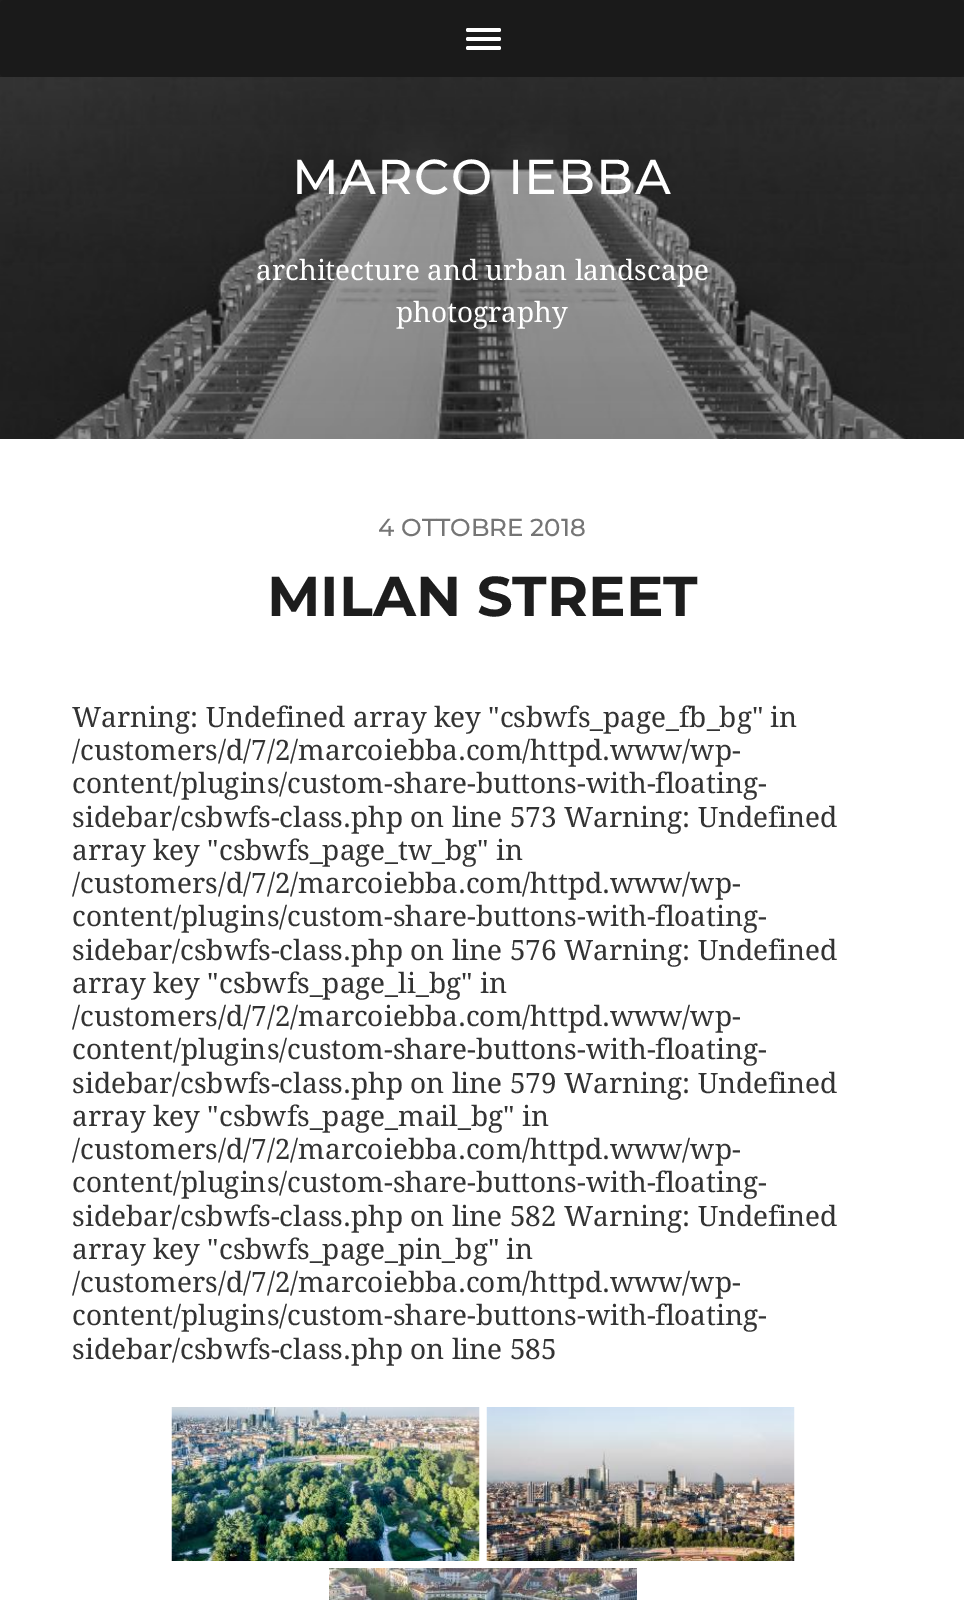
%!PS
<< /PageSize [964 1600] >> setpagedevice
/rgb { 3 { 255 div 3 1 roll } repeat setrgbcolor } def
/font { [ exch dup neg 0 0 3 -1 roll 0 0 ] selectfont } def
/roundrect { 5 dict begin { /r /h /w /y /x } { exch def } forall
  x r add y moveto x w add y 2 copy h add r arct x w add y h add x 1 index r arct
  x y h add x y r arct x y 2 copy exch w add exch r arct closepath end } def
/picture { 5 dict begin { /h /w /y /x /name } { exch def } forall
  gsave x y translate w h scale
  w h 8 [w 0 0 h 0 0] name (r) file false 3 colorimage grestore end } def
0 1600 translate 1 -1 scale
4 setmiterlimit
29 29 29 rgb
0 0 964 1600 rectfill
26 26 26 rgb
0 0 964 77 5 roundrect fill
255 255 255 rgb
466 28 35 4 2 roundrect fill
466 37 35 4 2 roundrect fill
466 46 35 4 2 roundrect fill
(img/1.rgb) 0 77 964 362 picture
0 439 964 1161 rectfill
(img/2.rgb) 171 1407 309 154 picture
(img/3.rgb) 486 1407 309 154 picture
(img/4.rgb) 329 1568 308 32 picture
/Montserrat-Thin 49 font
292 194 moveto 1.25 0 (MARCO IEBBA) ashow
/DroidSerif-Regular 28 font
256 280 moveto (architecture and urban landscape) show
396 322 moveto (photography) show
/Montserrat-Thin 24.5 font
117 117 117 rgb
378 536 moveto (4 OTTOBRE 2018) show
/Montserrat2-Thin 56 font
29 29 29 rgb
267 616 moveto (MILAN STREET) show
/DroidSerif-Regular 28 font
51 51 51 rgb
[
  [(Warning: Undefined array key "csbwfs_page_fb_bg" in) 72 727]
  [(/customers/d/7/2/marcoiebba.com/httpd.www/wp-) 72 760]
  [(content/plugins/custom-share-buttons-with-floating-) 72 793]
  [(sidebar/csbwfs-class.php on line 573 Warning: Undefined) 72 827]
  [(array key "csbwfs_page_tw_bg" in) 72 860]
  [(/customers/d/7/2/marcoiebba.com/httpd.www/wp-) 72 893]
  [(content/plugins/custom-share-buttons-with-floating-) 72 926]
  [(sidebar/csbwfs-class.php on line 576 Warning: Undefined) 72 960]
  [(array key "csbwfs_page_li_bg" in) 72 993]
  [(/customers/d/7/2/marcoiebba.com/httpd.www/wp-) 72 1026]
  [(content/plugins/custom-share-buttons-with-floating-) 72 1059]
  [(sidebar/csbwfs-class.php on line 579 Warning: Undefined) 72 1093]
  [(array key "csbwfs_page_mail_bg" in) 72 1126]
  [(/customers/d/7/2/marcoiebba.com/httpd.www/wp-) 72 1159]
  [(content/plugins/custom-share-buttons-with-floating-) 72 1192]
  [(sidebar/csbwfs-class.php on line 582 Warning: Undefined) 72 1226]
  [(array key "csbwfs_page_pin_bg" in) 72 1259]
  [(/customers/d/7/2/marcoiebba.com/httpd.www/wp-) 72 1292]
  [(content/plugins/custom-share-buttons-with-floating-) 72 1325]
  [(sidebar/csbwfs-class.php on line 585) 72 1359]
] { aload pop moveto show } forall
showpage
